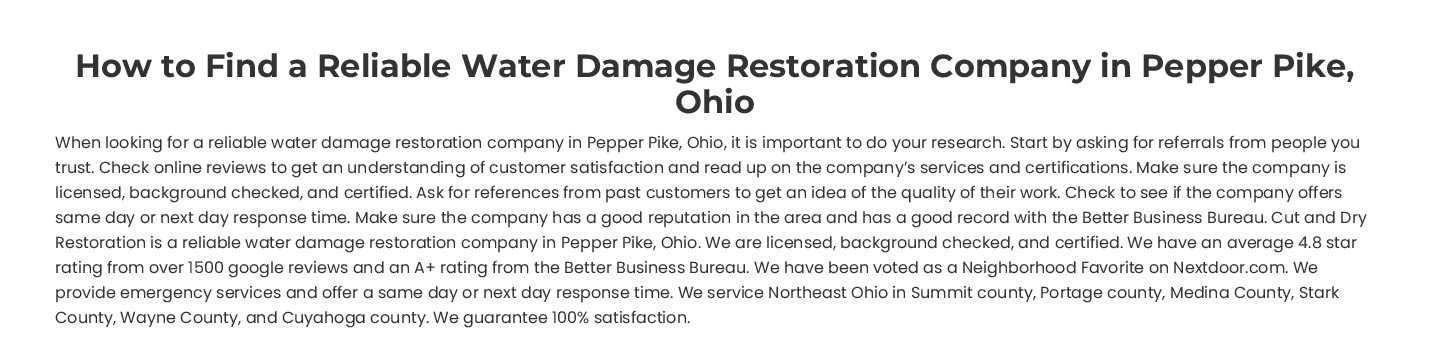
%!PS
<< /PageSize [1430 340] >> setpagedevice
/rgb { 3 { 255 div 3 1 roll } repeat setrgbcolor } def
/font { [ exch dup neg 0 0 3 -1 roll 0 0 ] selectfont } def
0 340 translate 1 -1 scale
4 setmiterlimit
255 255 255 rgb
0 0 1430 340 rectfill
/Montserrat-Bold 32 font
51 51 51 rgb
75 77 moveto (How to Find a Reliable Water Damage Restoration Company in Pepper Pike,) show
675 113 moveto (Ohio) show
/Poppins-Regular 16 font
[
  [(When looking for a reliable water damage restoration company in Pepper Pike, Ohio, it is important to do your research. Start by asking for referrals from people you) 55 148]
  [(trust. Check online reviews to get an understanding of customer satisfaction and read up on the company’s services and certifications. Make sure the company is) 55 173]
  [(licensed, background checked, and certified. Ask for references from past customers to get an idea of the quality of their work. Check to see if the company offers) 55 198]
  [(same day or next day response time. Make sure the company has a good reputation in the area and has a good record with the Better Business Bureau. Cut and Dry) 55 223]
  [(Restoration is a reliable water damage restoration company in Pepper Pike, Ohio. We are licensed, background checked, and certified. We have an average 4.8 star) 55 248]
  [(rating from over 1500 google reviews and an A+ rating from the Better Business Bureau. We have been voted as a Neighborhood Favorite on Nextdoor.com. We) 55 273]
  [(provide emergency services and offer a same day or next day response time. We service Northeast Ohio in Summit county, Portage county, Medina County, Stark) 55 298]
  [(County, Wayne County, and Cuyahoga county. We guarantee 100% satisfaction.) 55 323]
] { aload pop moveto show } forall
showpage
